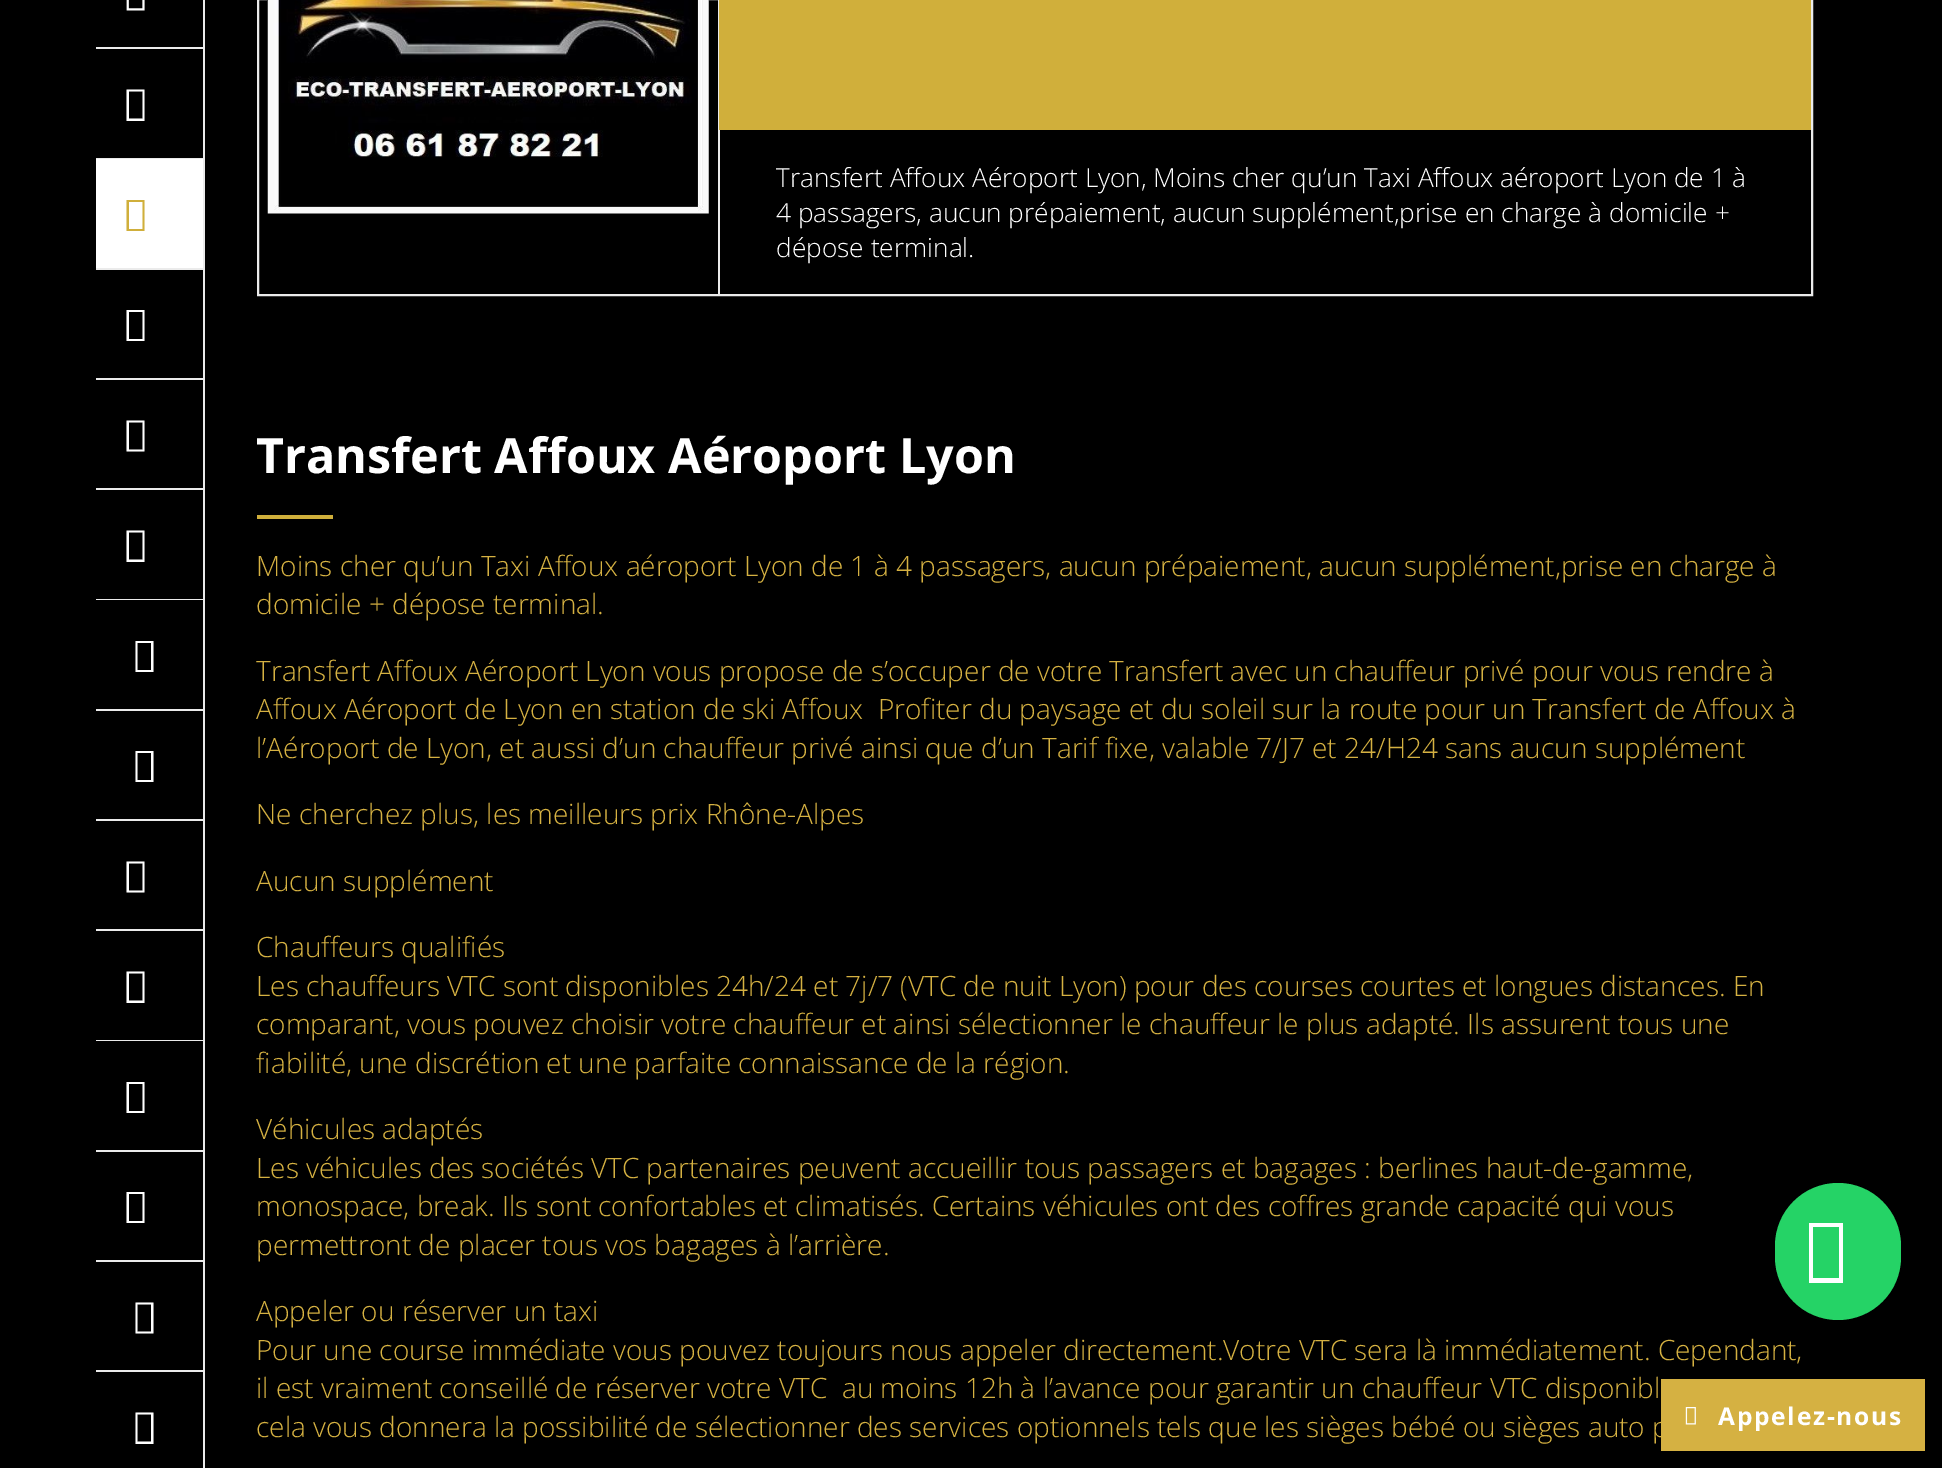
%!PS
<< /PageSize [1942 1468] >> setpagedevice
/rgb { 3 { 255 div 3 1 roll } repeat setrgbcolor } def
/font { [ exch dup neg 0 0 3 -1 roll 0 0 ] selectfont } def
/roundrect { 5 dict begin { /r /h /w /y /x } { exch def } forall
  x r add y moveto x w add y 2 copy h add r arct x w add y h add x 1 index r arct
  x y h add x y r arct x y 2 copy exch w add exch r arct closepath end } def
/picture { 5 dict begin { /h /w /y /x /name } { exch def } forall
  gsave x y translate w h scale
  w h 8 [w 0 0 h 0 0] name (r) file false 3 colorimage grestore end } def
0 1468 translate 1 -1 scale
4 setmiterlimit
0 0 0 rgb
0 0 1942 1468 rectfill
235 235 235 rgb
203 0 2 49 rectfill
(img/1.rgb) 126 0 19 11 picture
96 47 109 2 rectfill
203 47 2 112 rectfill
255 255 255 rgb
126.5 121 moveto 126.5 89.5 lineto 144.5 89.5 lineto 144.5 121 lineto closepath 129 118.5 moveto 142.5 118.5 lineto 142.5 91.5 lineto 129 91.5 lineto closepath fill
[
  [96 158 109 1 235 235 235]
  [203 158 2 112 235 235 235]
  [96 159 107 109 255 255 255]
] { aload pop rgb rectfill } forall
208 175 59 rgb
126.5 231 moveto 126.5 200 lineto 144.5 200 lineto 144.5 231 lineto closepath 129 229 moveto 142.5 229 lineto 142.5 202 lineto 129 202 lineto closepath fill
235 235 235 rgb
96 268 109 2 rectfill
203 268 2 112 rectfill
255 255 255 rgb
126.5 341 moveto 126.5 310 lineto 144.5 310 lineto 144.5 341 lineto closepath 129 339 moveto 142.5 339 lineto 142.5 312 lineto 129 312 lineto closepath fill
235 235 235 rgb
96 378 109 2 rectfill
203 378 2 112 rectfill
255 255 255 rgb
126.5 451.5 moveto 126.5 420.5 lineto 144.5 420.5 lineto 144.5 451.5 lineto closepath 129 449.5 moveto 142.5 449.5 lineto 142.5 422.5 lineto 129 422.5 lineto closepath fill
235 235 235 rgb
96 488 109 2 rectfill
203 488 2 112 rectfill
255 255 255 rgb
126.5 562 moveto 126.5 530.5 lineto 144.5 530.5 lineto 144.5 562 lineto closepath 129 559.5 moveto 142.5 559.5 lineto 142.5 532.5 lineto 129 532.5 lineto closepath fill
235 235 235 rgb
96 599 109 1 rectfill
203 599 2 112 rectfill
255 255 255 rgb
135.5 672 moveto 135.5 641 lineto 153.5 641 lineto 153.5 672 lineto closepath 137.5 670 moveto 151 670 lineto 151 643 lineto 137.5 643 lineto closepath fill
235 235 235 rgb
96 709 109 2 rectfill
203 709 2 112 rectfill
255 255 255 rgb
135.5 782 moveto 135.5 751 lineto 153.5 751 lineto 153.5 782 lineto closepath 137.5 780 moveto 151 780 lineto 151 753 lineto 137.5 753 lineto closepath fill
235 235 235 rgb
96 819 109 2 rectfill
203 819 2 112 rectfill
255 255 255 rgb
126.5 892.5 moveto 126.5 861.5 lineto 144.5 861.5 lineto 144.5 892.5 lineto closepath 129 890.5 moveto 142.5 890.5 lineto 142.5 863.5 lineto 129 863.5 lineto closepath fill
235 235 235 rgb
96 929 109 2 rectfill
203 929 2 112 rectfill
255 255 255 rgb
126.5 1003 moveto 126.5 971.5 lineto 144.5 971.5 lineto 144.5 1003 lineto closepath 129 1000.5 moveto 142.5 1000.5 lineto 142.5 973.5 lineto 129 973.5 lineto closepath fill
235 235 235 rgb
96 1040 109 1 rectfill
203 1040 2 112 rectfill
255 255 255 rgb
126.5 1113 moveto 126.5 1082 lineto 144.5 1082 lineto 144.5 1113 lineto closepath 129 1111 moveto 142.5 1111 lineto 142.5 1084 lineto 129 1084 lineto closepath fill
235 235 235 rgb
96 1150 109 2 rectfill
203 1150 2 112 rectfill
255 255 255 rgb
126.5 1223 moveto 126.5 1192 lineto 144.5 1192 lineto 144.5 1223 lineto closepath 129 1221 moveto 142.5 1221 lineto 142.5 1194 lineto 129 1194 lineto closepath fill
235 235 235 rgb
96 1260 109 2 rectfill
203 1260 2 112 rectfill
255 255 255 rgb
135.5 1333.5 moveto 135.5 1302.5 lineto 153.5 1302.5 lineto 153.5 1333.5 lineto closepath 137.5 1331.5 moveto 151 1331.5 lineto 151 1304.5 lineto 137.5 1304.5 lineto closepath fill
235 235 235 rgb
96 1370 109 2 rectfill
203 1370 2 98 rectfill
255 255 255 rgb
135.5 1444 moveto 135.5 1412.5 lineto 153.5 1412.5 lineto 153.5 1444 lineto closepath 137.5 1441.5 moveto 151 1441.5 lineto 151 1414.5 lineto 137.5 1414.5 lineto closepath fill
235 235 235 rgb
2 setlinewidth
258 -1 1554 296 rectstroke
(img/2.rgb) 267 0 442 214 picture
[
  [718 0 2 294 235 235 235]
  [719 0 1092 130 208 175 59]
  [257 515 76 4 208 175 59]
] { aload pop rgb rectfill } forall
37 211 102 rgb
1775 1183 126 137 63 roundrect fill
255 255 255 rgb
1809 1283 moveto 1809 1223 lineto 1843 1223 lineto 1843 1283 lineto closepath 1813 1278 moveto 1839 1278 lineto 1839 1227 lineto 1813 1227 lineto closepath fill
213 177 66 rgb
1661 1379 264 72 rectfill
(img/3.rgb) 1685 1407 11 18 picture
/OpenSans-Light 26.25 font
255 255 255 rgb
[
  [(Transfert Affoux Aéroport Lyon, Moins cher qu’un Taxi Affoux aéroport Lyon de 1 à) 776 187]
  [(4 passagers, aucun prépaiement, aucun supplément,prise en charge à domicile +) 776 222]
  [(dépose terminal.) 776 257]
] { aload pop moveto show } forall
/OpenSans-Bold 48.5 font
256 473 moveto (Transfert Affoux Aéroport Lyon) show
/OpenSans-Light 28 font
213 177 66 rgb
[
  [(Moins cher qu’un Taxi Affoux aéroport Lyon de 1 à 4 passagers, aucun prépaiement, aucun supplément,prise en charge à) 256 576]
  [(domicile + dépose terminal.) 256 614]
  [(Transfert Affoux Aéroport Lyon vous propose de s’occuper de votre Transfert avec un chauffeur privé pour vous rendre à) 256 681]
  [(Affoux Aéroport de Lyon en station de ski Affoux  Profiter du paysage et du soleil sur la route pour un Transfert de Affoux à) 256 719]
  [(l’Aéroport de Lyon, et aussi d’un chauffeur privé ainsi que d’un Tarif fixe, valable 7/J7 et 24/H24 sans aucun supplément) 256 758]
  [(Ne cherchez plus, les meilleurs prix Rhône-Alpes) 256 824]
  [(Aucun supplément) 256 891]
  [(Chauffeurs qualifiés) 256 957]
  [(Les chauffeurs VTC sont disponibles 24h/24 et 7j/7 \(VTC de nuit Lyon\) pour des courses courtes et longues distances. En) 256 996]
  [(comparant, vous pouvez choisir votre chauffeur et ainsi sélectionner le chauffeur le plus adapté. Ils assurent tous une) 256 1034]
  [(fiabilité, une discrétion et une parfaite connaissance de la région.) 256 1073]
  [(Véhicules adaptés) 256 1139]
  [(Les véhicules des sociétés VTC partenaires peuvent accueillir tous passagers et bagages : berlines haut-de-gamme,) 256 1178]
  [(monospace, break. Ils sont confortables et climatisés. Certains véhicules ont des coffres grande capacité qui vous) 256 1216]
  [(permettront de placer tous vos bagages à l’arrière.) 256 1255]
  [(Appeler ou réserver un taxi) 256 1321]
  [(Pour une course immédiate vous pouvez toujours nous appeler directement.Votre VTC sera là immédiatement. Cependant,) 256 1360]
  [(il est vraiment conseillé de réserver votre VTC  au moins 12h à l’avance pour garantir un chauffeur VTC disponibl) 256 1398]
  [(cela vous donnera la possibilité de sélectionner des services optionnels tels que les sièges bébé ou sièges auto p) 256 1437]
] { aload pop moveto show } forall
/OpenSans-Bold 24.5 font
255 255 255 rgb
1718 1425 moveto 1.75 0 (Appelez-nous) ashow
showpage
